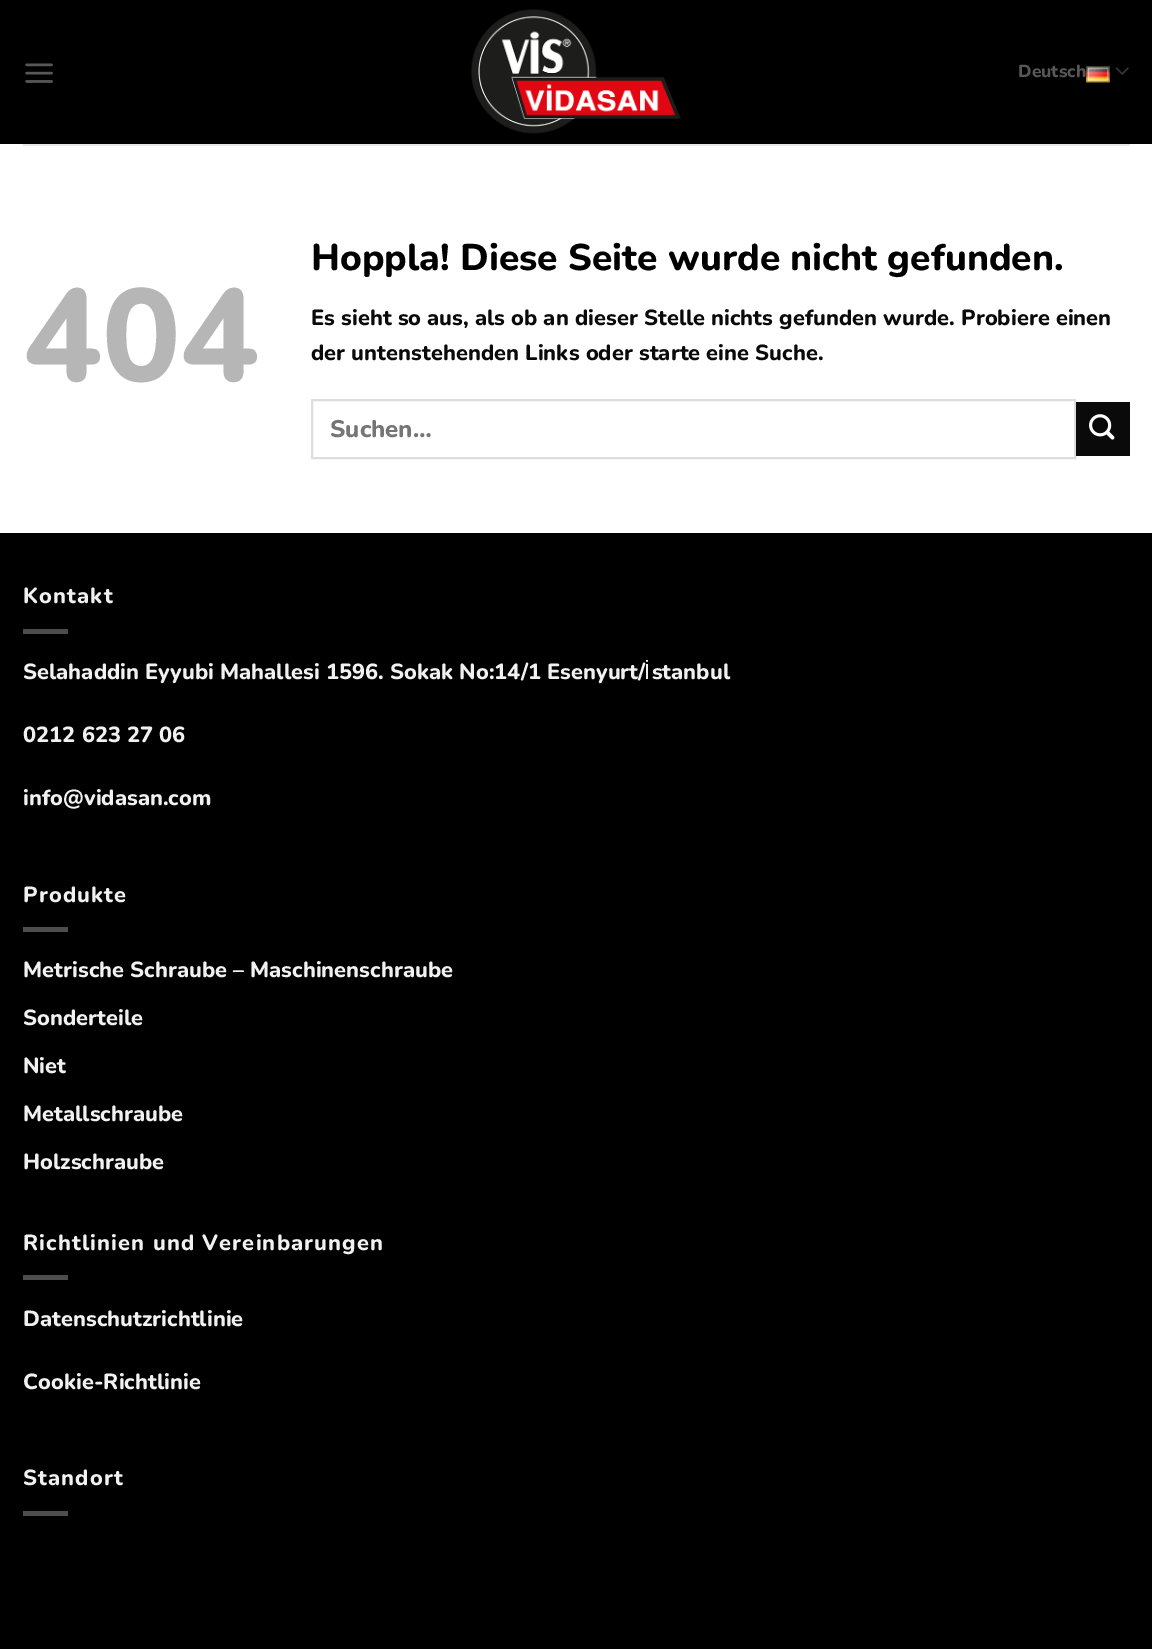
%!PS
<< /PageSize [1152 1649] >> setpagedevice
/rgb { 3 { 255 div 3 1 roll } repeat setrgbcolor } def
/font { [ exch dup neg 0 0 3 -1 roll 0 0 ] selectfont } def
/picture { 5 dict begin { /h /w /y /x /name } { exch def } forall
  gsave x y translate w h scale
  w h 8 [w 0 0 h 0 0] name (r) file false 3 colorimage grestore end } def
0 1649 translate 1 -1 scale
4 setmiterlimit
255 255 255 rgb
0 0 1152 1649 rectfill
0 0 0 rgb
0 0 1152 144 rectfill
(img/1.rgb) 25 63 28 20 picture
(img/2.rgb) 471 9 210 125 picture
(img/3.rgb) 1086 66 24 17 picture
(img/4.rgb) 1115 67 14 8 picture
231 231 231 rgb
23 144 1107 2 rectfill
221 221 221 rgb
2 setlinewidth
312 400 763 58 rectstroke
10 10 10 rgb
1076 402 54 54 rectfill
(img/5.rgb) 1089 414 26 26 picture
[
  [0 533 1152 1116 0 0 0]
  [23 629 45 5 77 77 77]
  [23 927 45 5 77 77 77]
  [23 1275 45 5 77 77 77]
  [23 1511 45 5 77 77 77]
] { aload pop rgb rectfill } forall
/Nunito-ExtraBold 17.5 font
87 87 87 rgb
1018 77 moveto (Deutsch) show
/Nunito-ExtraBold 131 font
182 182 182 rgb
23 381 moveto (404) show
/Nunito-ExtraBold 37.1 font
0 0 0 rgb
311 270 moveto (Hoppla! Diese Seite wurde nicht gefunden.) show
/Nunito-ExtraBold 21.85 font
10 10 10 rgb
311 325 moveto (Es sieht so aus, als ob an dieser Stelle nichts gefunden wurde. Probiere einen) show
311 360 moveto (der untenstehenden Links oder starte eine Suche.) show
/Nunito-ExtraBold 24 font
117 117 117 rgb
330 437 moveto (Suchen…) show
/Nunito-ExtraBold 21.85 font
241 241 241 rgb
23 603 moveto 1.1 0 (Kontakt) ashow
23 679 moveto (Selahaddin Eyyubi Mahallesi 1596. Sokak No:14/1 Esenyurt/ stanbul) show
/LiberationSans-Regular 21.85 font
644 679 moveto (İ) show
/Nunito-ExtraBold 21.85 font
23 742 moveto (0212 623 27 06) show
23 805 moveto (info@vidasan.com) show
23 902 moveto 1.1 0 (Produkte) ashow
[
  [(Metrische Schraube – Maschinenschraube) 23 977]
  [(Sonderteile) 23 1025]
  [(Niet) 23 1073]
  [(Metallschraube) 23 1121]
  [(Holzschraube) 23 1169]
] { aload pop moveto show } forall
23 1250 moveto 1.1 0 (Richtlinien und Vereinbarungen) ashow
23 1326 moveto (Datenschutzrichtlinie) show
23 1389 moveto (Cookie-Richtlinie) show
23 1485 moveto 1.1 0 (Standort) ashow
showpage
